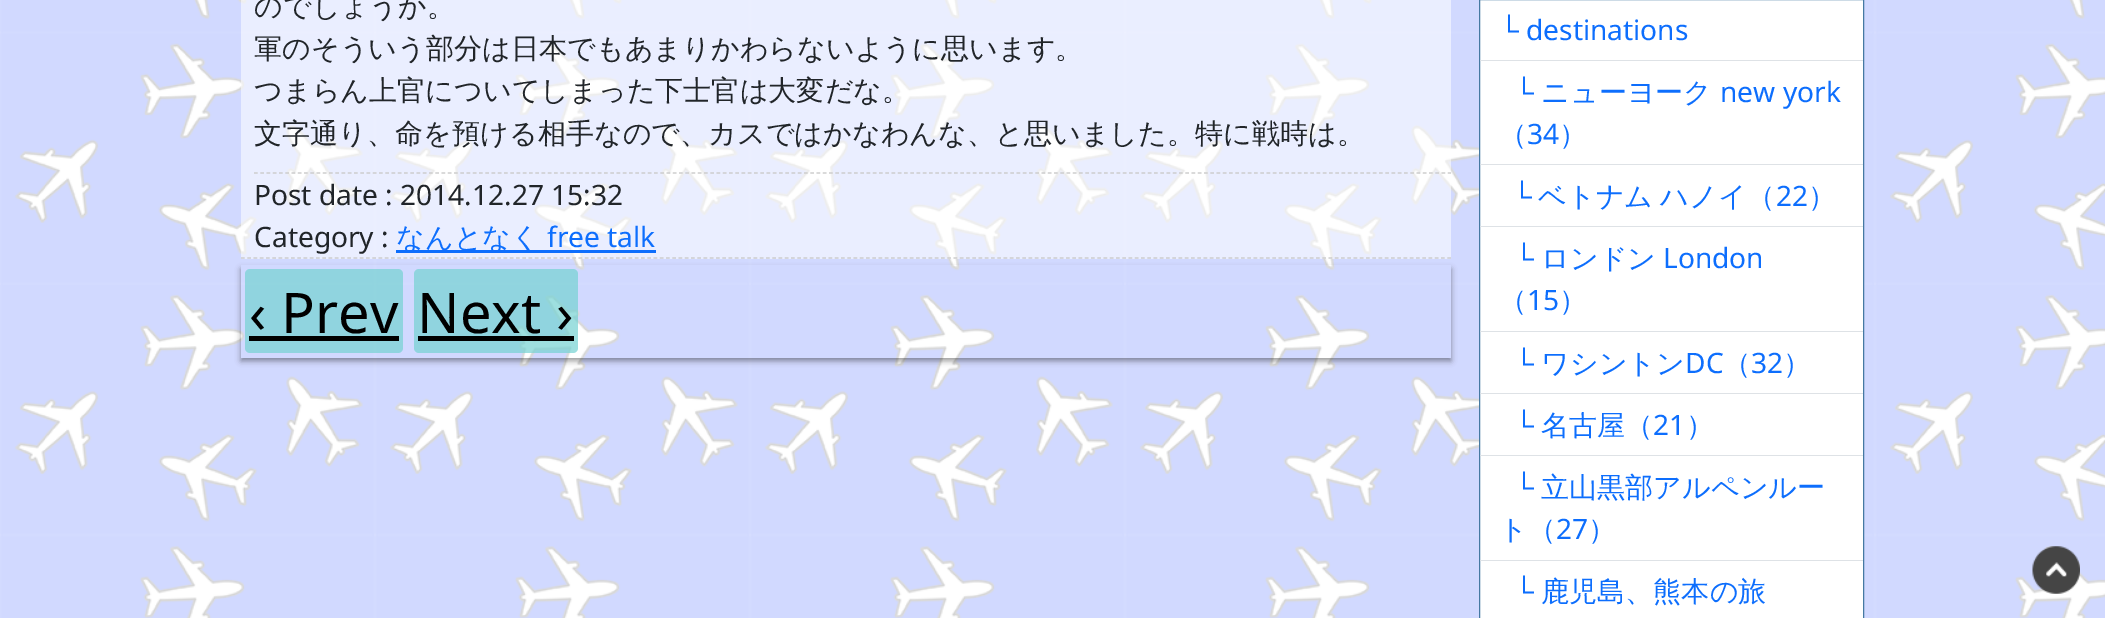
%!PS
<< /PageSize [2105 618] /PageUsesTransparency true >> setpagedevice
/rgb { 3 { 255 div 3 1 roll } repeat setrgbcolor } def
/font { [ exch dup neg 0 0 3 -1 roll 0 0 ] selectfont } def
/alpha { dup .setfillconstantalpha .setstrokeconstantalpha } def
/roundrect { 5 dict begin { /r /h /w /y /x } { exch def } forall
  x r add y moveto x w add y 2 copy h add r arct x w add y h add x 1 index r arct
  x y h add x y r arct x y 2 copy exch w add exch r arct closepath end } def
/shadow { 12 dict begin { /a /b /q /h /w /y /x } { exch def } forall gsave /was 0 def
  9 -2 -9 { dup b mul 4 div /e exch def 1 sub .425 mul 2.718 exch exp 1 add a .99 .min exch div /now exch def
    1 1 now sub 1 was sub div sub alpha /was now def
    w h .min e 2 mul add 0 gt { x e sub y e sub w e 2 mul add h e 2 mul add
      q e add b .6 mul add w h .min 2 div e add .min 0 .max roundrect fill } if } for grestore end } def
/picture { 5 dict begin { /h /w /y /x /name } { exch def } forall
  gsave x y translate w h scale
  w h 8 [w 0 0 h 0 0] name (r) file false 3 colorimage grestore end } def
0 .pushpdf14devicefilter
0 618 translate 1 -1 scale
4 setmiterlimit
255 255 255 rgb
0 0 2105 618 rectfill
(img/1.rgb) 0 0 2105 618 picture
0.55 alpha
241 0 1210 259 rectfill
1 alpha
204 204 204 rgb
1.2 setlinewidth
[3.75 2.5] 0 setdash
241 258 moveto 1451 258 lineto stroke
254 173 moveto 1451 173 lineto stroke
13 110 253 rgb
396 250 260 3 rectfill
gsave
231 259 moveto 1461 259 lineto 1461 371 lineto 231 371 lineto closepath 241 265 moveto 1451 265 lineto 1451 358 lineto 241 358 lineto closepath eoclip newpath
0 0 0 rgb
241 269 1210 92 0 3 0.4 shadow
grestore
0.7 alpha
117 210 210 rgb
245 269 158 84 5 roundrect fill
1 alpha
0 0 0 rgb
249 336 150 5 rectfill
0.7 alpha
117 210 210 rgb
414 269 164 84 5 roundrect fill
1 alpha
0 0 0 rgb
418 336 156 5 rectfill
255 255 255 rgb
1479.5 -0.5 moveto 1863.5 -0.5 lineto 1863.5 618.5 lineto 1479.5 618.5 lineto closepath gsave fill grestore
69 121 162 rgb
1 setlinewidth
[] 0 setdash
stroke
[
  [1480 60 383 1 222 226 230]
  [1480 164 383 1 222 226 230]
  [1480 226 383 1 222 226 230]
  [1480 331 383 1 222 226 230]
  [1480 393 383 1 222 226 230]
  [1480 455 383 1 222 226 230]
  [1480 560 383 1 222 226 230]
] { aload pop rgb rectfill } forall
(img/2.rgb) 2032 546 48 48 picture
/WenQuanYiZenHei-Medium 28.1 font
33 37 41 rgb
[
  [(のでしょうか。) 254 16]
  [(軍のそういう部分は日本でもあまりかわらないように思います。) 254 58]
  [(つまらん上官についてしまった下士官は大変だな。) 254 100]
  [(文字通り、命を預ける相手なので、カスではかなわんな、と思いました。特に戦時は。) 254 143]
] { aload pop moveto show } forall
/NotoSans-Regular 28.1 font
254 205 moveto (Post date : 2014.12.27 15:32) show
254 247 moveto (Category :) show
/WenQuanYiZenHei-Medium 28.1 font
13 110 253 rgb
396 247 moveto (なんとなく) show
/NotoSans-Regular 28.1 font
547 247 moveto (free talk) show
/NotoSans-Regular 56 font
0 0 0 rgb
249 333 moveto (‹ Prev) show
417 333 moveto (Next ›) show
/LiberationSans-Regular 28.1 font
13 110 253 rgb
1499 40 moveto (└) show
/NotoSans-Regular 28.1 font
1526 40 moveto (destinations) show
/LiberationSans-Regular 28.1 font
1514 102 moveto (└) show
/WenQuanYiZenHei-Medium 28.1 font
1541 102 moveto (ニューヨーク) show
/NotoSans-Regular 28.1 font
1720 102 moveto (new york) show
/WenQuanYiZenHei-Medium 28.1 font
1499 144 moveto (（) show
/NotoSans-Regular 28.1 font
1527 144 moveto (34) show
/WenQuanYiZenHei-Medium 28.1 font
1559 144 moveto (）) show
/LiberationSans-Regular 28.1 font
1512 206 moveto (└) show
/WenQuanYiZenHei-Medium 28.1 font
1538 206 moveto -1 0 32 (ベトナム ハノイ（) widthshow
/NotoSans-Regular 28.1 font
1776 206 moveto (22) show
/WenQuanYiZenHei-Medium 28.1 font
1808 206 moveto (）) show
/LiberationSans-Regular 28.1 font
1514 268 moveto (└) show
/WenQuanYiZenHei-Medium 28.1 font
1541 268 moveto (ロンドン) show
/NotoSans-Regular 28.1 font
1663 268 moveto (London) show
/WenQuanYiZenHei-Medium 28.1 font
1499 310 moveto (（) show
/NotoSans-Regular 28.1 font
1527 310 moveto (15) show
/WenQuanYiZenHei-Medium 28.1 font
1559 310 moveto (）) show
/LiberationSans-Regular 28.1 font
1514 373 moveto (└) show
/WenQuanYiZenHei-Medium 28.1 font
1541 373 moveto (ワシントン) show
/NotoSans-Regular 28.1 font
1685 373 moveto (DC) show
/WenQuanYiZenHei-Medium 28.1 font
1723 373 moveto (（) show
/NotoSans-Regular 28.1 font
1751 373 moveto (32) show
/WenQuanYiZenHei-Medium 28.1 font
1783 373 moveto (）) show
/LiberationSans-Regular 28.1 font
1514 435 moveto (└) show
/WenQuanYiZenHei-Medium 28.1 font
1541 435 moveto (名古屋（) show
/NotoSans-Regular 28.1 font
1653 435 moveto (21) show
/WenQuanYiZenHei-Medium 28.1 font
1686 435 moveto (）) show
/LiberationSans-Regular 28.1 font
1514 497 moveto (└) show
/WenQuanYiZenHei-Medium 28.1 font
1541 497 moveto (立山黒部アルペンルー) show
1499 539 moveto (ト（) show
/NotoSans-Regular 28.1 font
1556 539 moveto (27) show
/WenQuanYiZenHei-Medium 28.1 font
1588 539 moveto (）) show
/LiberationSans-Regular 28.1 font
1514 601 moveto (└) show
/WenQuanYiZenHei-Medium 28.1 font
1541 601 moveto (鹿児島、熊本の旅) show
.poppdf14devicefilter showpage
